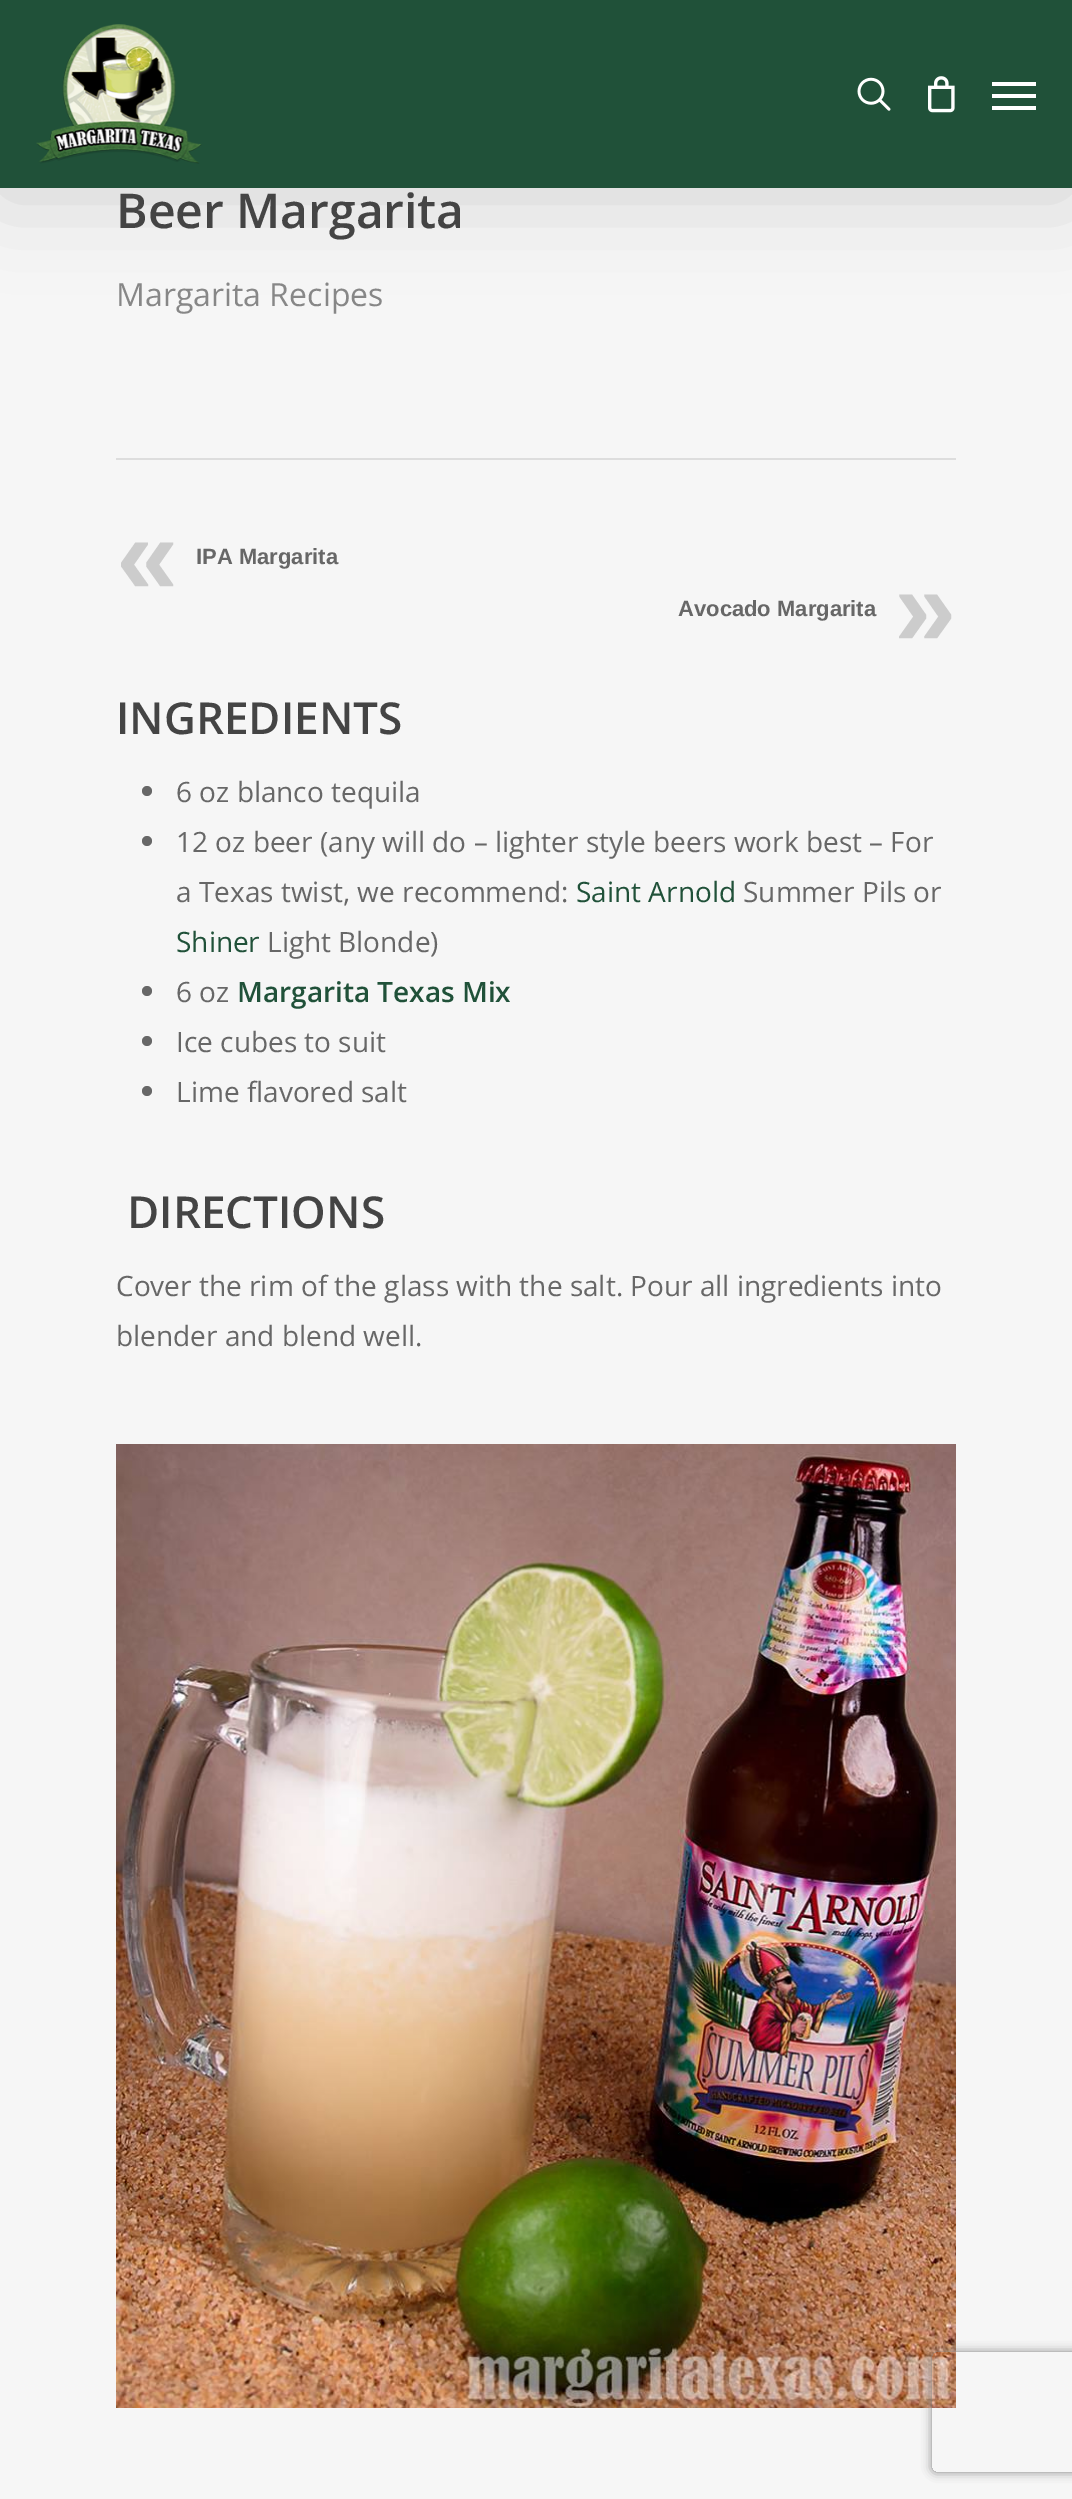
%!PS
<< /PageSize [1072 2499] /PageUsesTransparency true >> setpagedevice
/rgb { 3 { 255 div 3 1 roll } repeat setrgbcolor } def
/font { [ exch dup neg 0 0 3 -1 roll 0 0 ] selectfont } def
/alpha { dup .setfillconstantalpha .setstrokeconstantalpha } def
/circle { newpath 0 360 arc closepath } def
/roundrect { 5 dict begin { /r /h /w /y /x } { exch def } forall
  x r add y moveto x w add y 2 copy h add r arct x w add y h add x 1 index r arct
  x y h add x y r arct x y 2 copy exch w add exch r arct closepath end } def
/shadow { 12 dict begin { /a /b /q /h /w /y /x } { exch def } forall gsave /was 0 def
  9 -2 -9 { dup b mul 4 div /e exch def 1 sub .425 mul 2.718 exch exp 1 add a .99 .min exch div /now exch def
    1 1 now sub 1 was sub div sub alpha /was now def
    w h .min e 2 mul add 0 gt { x e sub y e sub w e 2 mul add h e 2 mul add
      q e add b .6 mul add w h .min 2 div e add .min 0 .max roundrect fill } if } for grestore end } def
/picture { 5 dict begin { /h /w /y /x /name } { exch def } forall
  gsave x y translate w h scale
  w h 8 [w 0 0 h 0 0] name (r) file false 3 colorimage grestore end } def
0 .pushpdf14devicefilter
0 2499 translate 1 -1 scale
4 setmiterlimit
246 246 246 rgb
0 0 1072 2499 rectfill
0 0 0 rgb
0 6 1072 188 0 45 0.15 shadow
32 81 57 rgb
0 0 1072 188 rectfill
(img/1.rgb) 36 24 166 140 picture
(img/2.rgb) 857 77 34 34 picture
(img/3.rgb) 928 76 27 37 picture
[
  [992 82 44 4 255 255 255]
  [992 106 44 4 255 255 255]
  [992 94 44 4 255 255 255]
  [116 458 840 2 221 221 221]
] { aload pop rgb rectfill } forall
103 103 103 rgb
147 791 5 circle fill
147 841 5 circle fill
147 991 5 circle fill
147 1041 5 circle fill
147 1091 5 circle fill
(img/4.rgb) 116 1444 840 964 picture
gsave
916 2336 moveto 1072 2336 lineto 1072 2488 lineto 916 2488 lineto closepath 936 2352 moveto 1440 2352 lineto 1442 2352 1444 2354 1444 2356 curveto 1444 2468 lineto 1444 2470 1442 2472 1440 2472 curveto 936 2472 lineto 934 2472 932 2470 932 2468 curveto 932 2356 lineto 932 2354 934 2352 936 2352 curveto closepath eoclip newpath
128 128 128 rgb
932 2352 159 120 4 5 1 shadow
grestore
/OpenSans-SemiBold 48 font
68 68 68 rgb
116 228 moveto (Beer Margarita) show
/OpenSans-Regular 32 font
135 135 135 rgb
116 306 moveto (Margarita Recipes) show
/LiberationSans-Bold 112 font
204 204 204 rgb
116 594 moveto («) show
/LiberationSans-Bold 22 font
103 103 103 rgb
196 564 moveto (IPA Margarita) show
678 616 moveto (Avocado Margarita) show
/LiberationSans-Bold 112 font
204 204 204 rgb
894 646 moveto (») show
/OpenSans-SemiBold 44 font
68 68 68 rgb
116 734 moveto (INGREDIENTS) show
/OpenSans-Regular 28 font
103 103 103 rgb
[
  [(6 oz blanco tequila) 176 802]
  [(12 oz beer \(any will do – lighter style beers work best – For) 176 852]
  [(a Texas twist, we recommend:) 176 902]
] { aload pop moveto show } forall
32 81 57 rgb
576 902 moveto (Saint Arnold) show
103 103 103 rgb
743 902 moveto (Summer Pils or) show
32 81 57 rgb
176 952 moveto (Shiner) show
103 103 103 rgb
267 952 moveto (Light Blonde\)) show
176 1002 moveto (6 oz) show
/OpenSans-SemiBold 28 font
32 81 57 rgb
237 1002 moveto (Margarita Texas Mix) show
/OpenSans-Regular 28 font
103 103 103 rgb
176 1052 moveto (Ice cubes to suit) show
176 1102 moveto (Lime flavored salt) show
/OpenSans-SemiBold 44 font
68 68 68 rgb
127 1228 moveto (DIRECTIONS) show
/OpenSans-Regular 28 font
103 103 103 rgb
116 1296 moveto (Cover the rim of the glass with the salt. Pour all ingredients into) show
116 1346 moveto (blender and blend well.) show
.poppdf14devicefilter showpage
